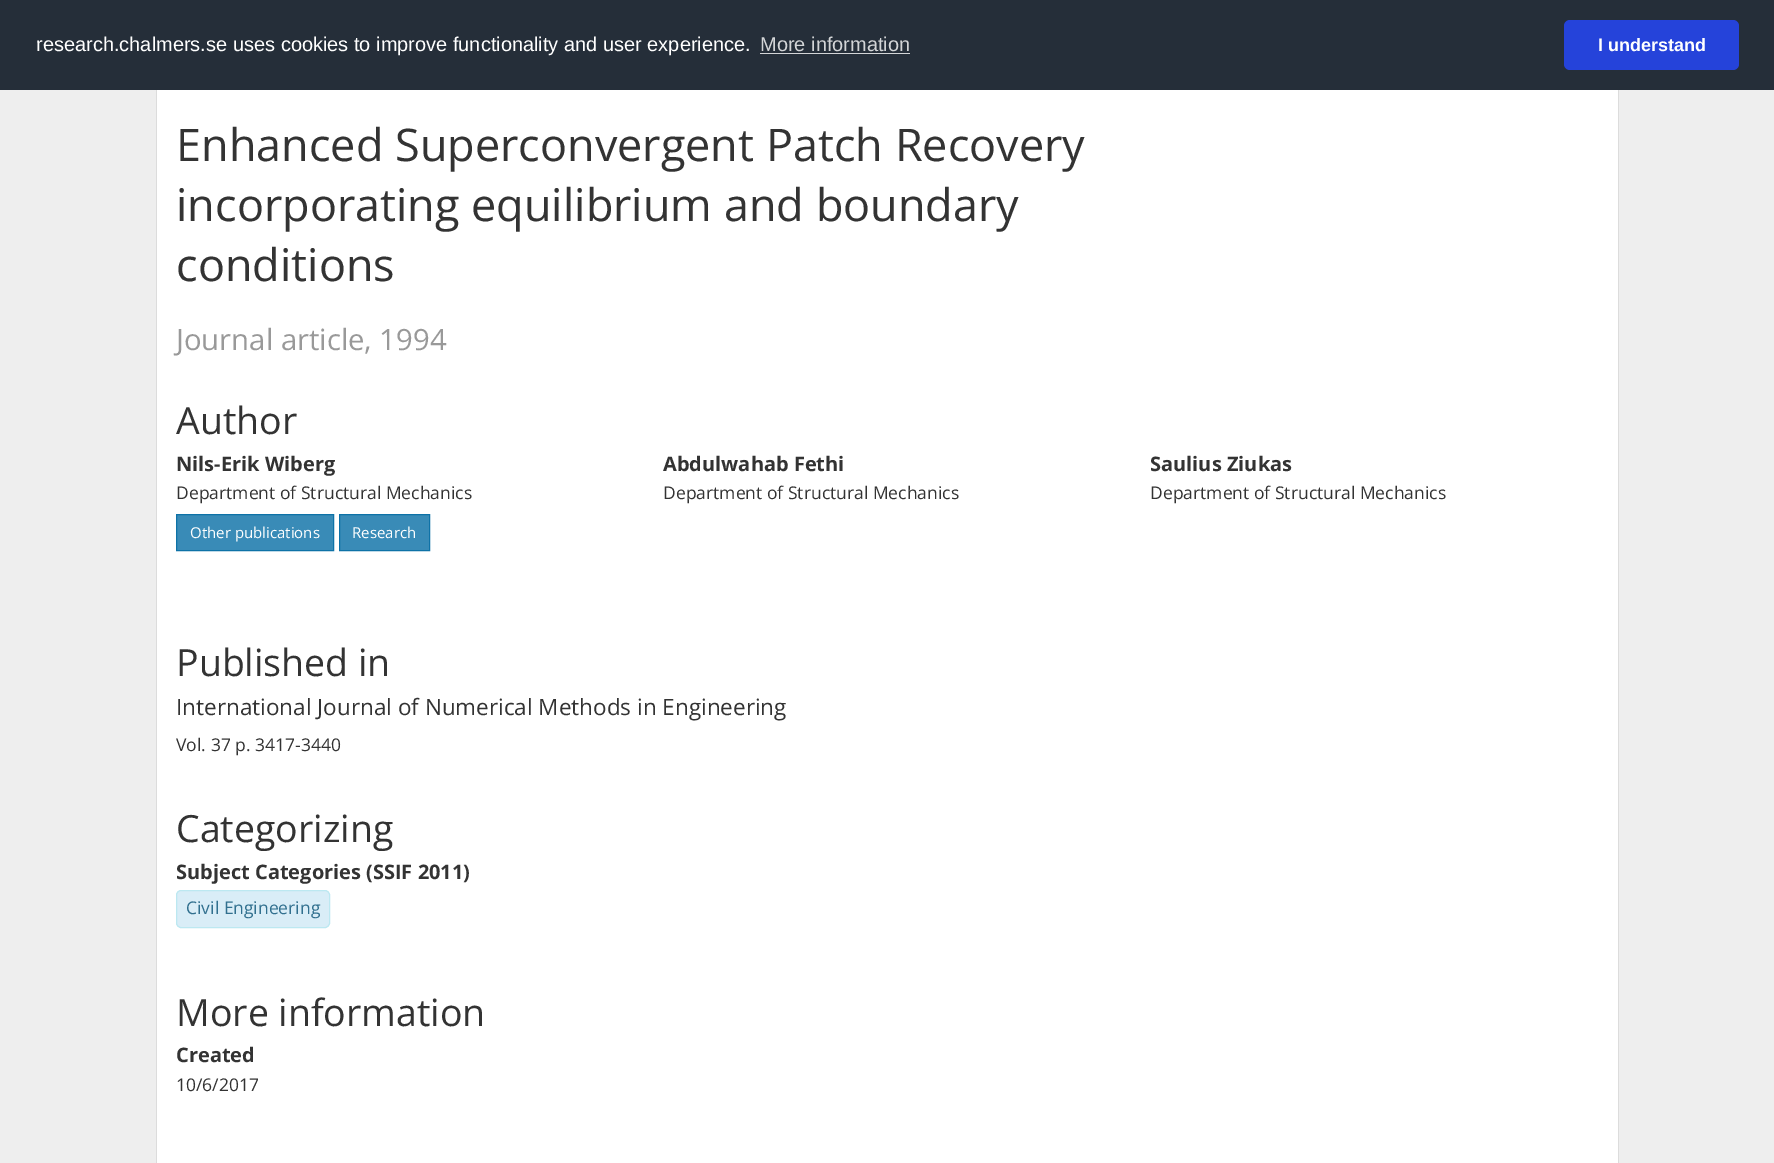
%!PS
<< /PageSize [1774 1163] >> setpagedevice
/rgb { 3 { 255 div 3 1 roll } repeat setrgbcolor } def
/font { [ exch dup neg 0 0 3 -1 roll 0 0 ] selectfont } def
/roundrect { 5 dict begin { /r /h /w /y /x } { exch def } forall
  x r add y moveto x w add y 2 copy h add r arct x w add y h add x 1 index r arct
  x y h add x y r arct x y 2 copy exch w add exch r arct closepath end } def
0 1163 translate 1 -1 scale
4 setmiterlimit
238 238 238 rgb
0 0 1774 1163 rectfill
37 46 57 rgb
0 0 1774 90 rectfill
211 213 215 rgb
760 53 150 1 rectfill
37 67 218 rgb
1564 20 175 50 6 roundrect fill
[
  [157 90 1461 1073 255 255 255]
  [1618 90 1 1073 220 220 220]
  [156 90 1 1073 220 220 220]
] { aload pop rgb rectfill } forall
57 139 183 rgb
176.5 514.5 moveto 333.5 514.5 lineto 333.5 550.5 lineto 176.5 550.5 lineto closepath gsave fill grestore
14 114 167 rgb
stroke
57 139 183 rgb
339.5 514.5 moveto 429.5 514.5 lineto 429.5 550.5 lineto 339.5 550.5 lineto closepath gsave fill grestore
14 114 167 rgb
stroke
217 237 247 rgb
176.5 890.5 153 37 4.5 roundrect gsave fill grestore
188 232 241 rgb
stroke
/LiberationSans-Regular 20 font
255 255 255 rgb
36 51 moveto (research.chalmers.se uses cookies to improve functionality and user experience.) show
211 213 215 rgb
760 51 moveto (More information) show
/LiberationSans-Bold 18 font
255 255 255 rgb
1598 51 moveto (I understand) show
/OpenSans-Regular 45 font
51 51 51 rgb
[
  [(Enhanced Superconvergent Patch Recovery) 176 161]
  [(incorporating equilibrium and boundary) 176 221]
  [(conditions) 176 281]
] { aload pop moveto show } forall
/OpenSans-Regular 29.25 font
153 153 153 rgb
176 350 moveto (Journal article, 1994) show
/OpenSans-Regular 37.5 font
51 51 51 rgb
176 434 moveto (Author) show
/OpenSans-Bold 20 font
176 471 moveto (Nils-Erik Wiberg) show
/OpenSans-Regular 17.5 font
176 499 moveto (Department of Structural Mechanics) show
/OpenSans-Regular 15 font
255 255 255 rgb
190 538 moveto (Other publications) show
352 538 moveto (Research) show
/OpenSans-Bold 20 font
51 51 51 rgb
663 471 moveto (Abdulwahab Fethi) show
/OpenSans-Regular 17.5 font
663 499 moveto (Department of Structural Mechanics) show
/OpenSans-Bold 20 font
1150 471 moveto (Saulius Ziukas) show
/OpenSans-Regular 17.5 font
1150 499 moveto (Department of Structural Mechanics) show
/OpenSans-Regular 37.5 font
176 676 moveto (Published in) show
/OpenSans-Regular 22.5 font
176 715 moveto (International Journal of Numerical Methods in Engineering) show
/OpenSans-Regular 17.5 font
176 751 moveto (Vol. 37 p. 3417-3440) show
/OpenSans-Regular 37.5 font
176 842 moveto (Categorizing) show
/OpenSans-Bold 20 font
176 879 moveto (Subject Categories \(SSIF 2011\)) show
/OpenSans-Regular 17.5 font
49 112 143 rgb
186 914 moveto (Civil Engineering) show
/OpenSans-Regular 37.5 font
51 51 51 rgb
176 1026 moveto (More information) show
/OpenSans-Bold 20 font
176 1062 moveto (Created) show
/OpenSans-Regular 17.5 font
176 1091 moveto (10/6/2017) show
showpage
